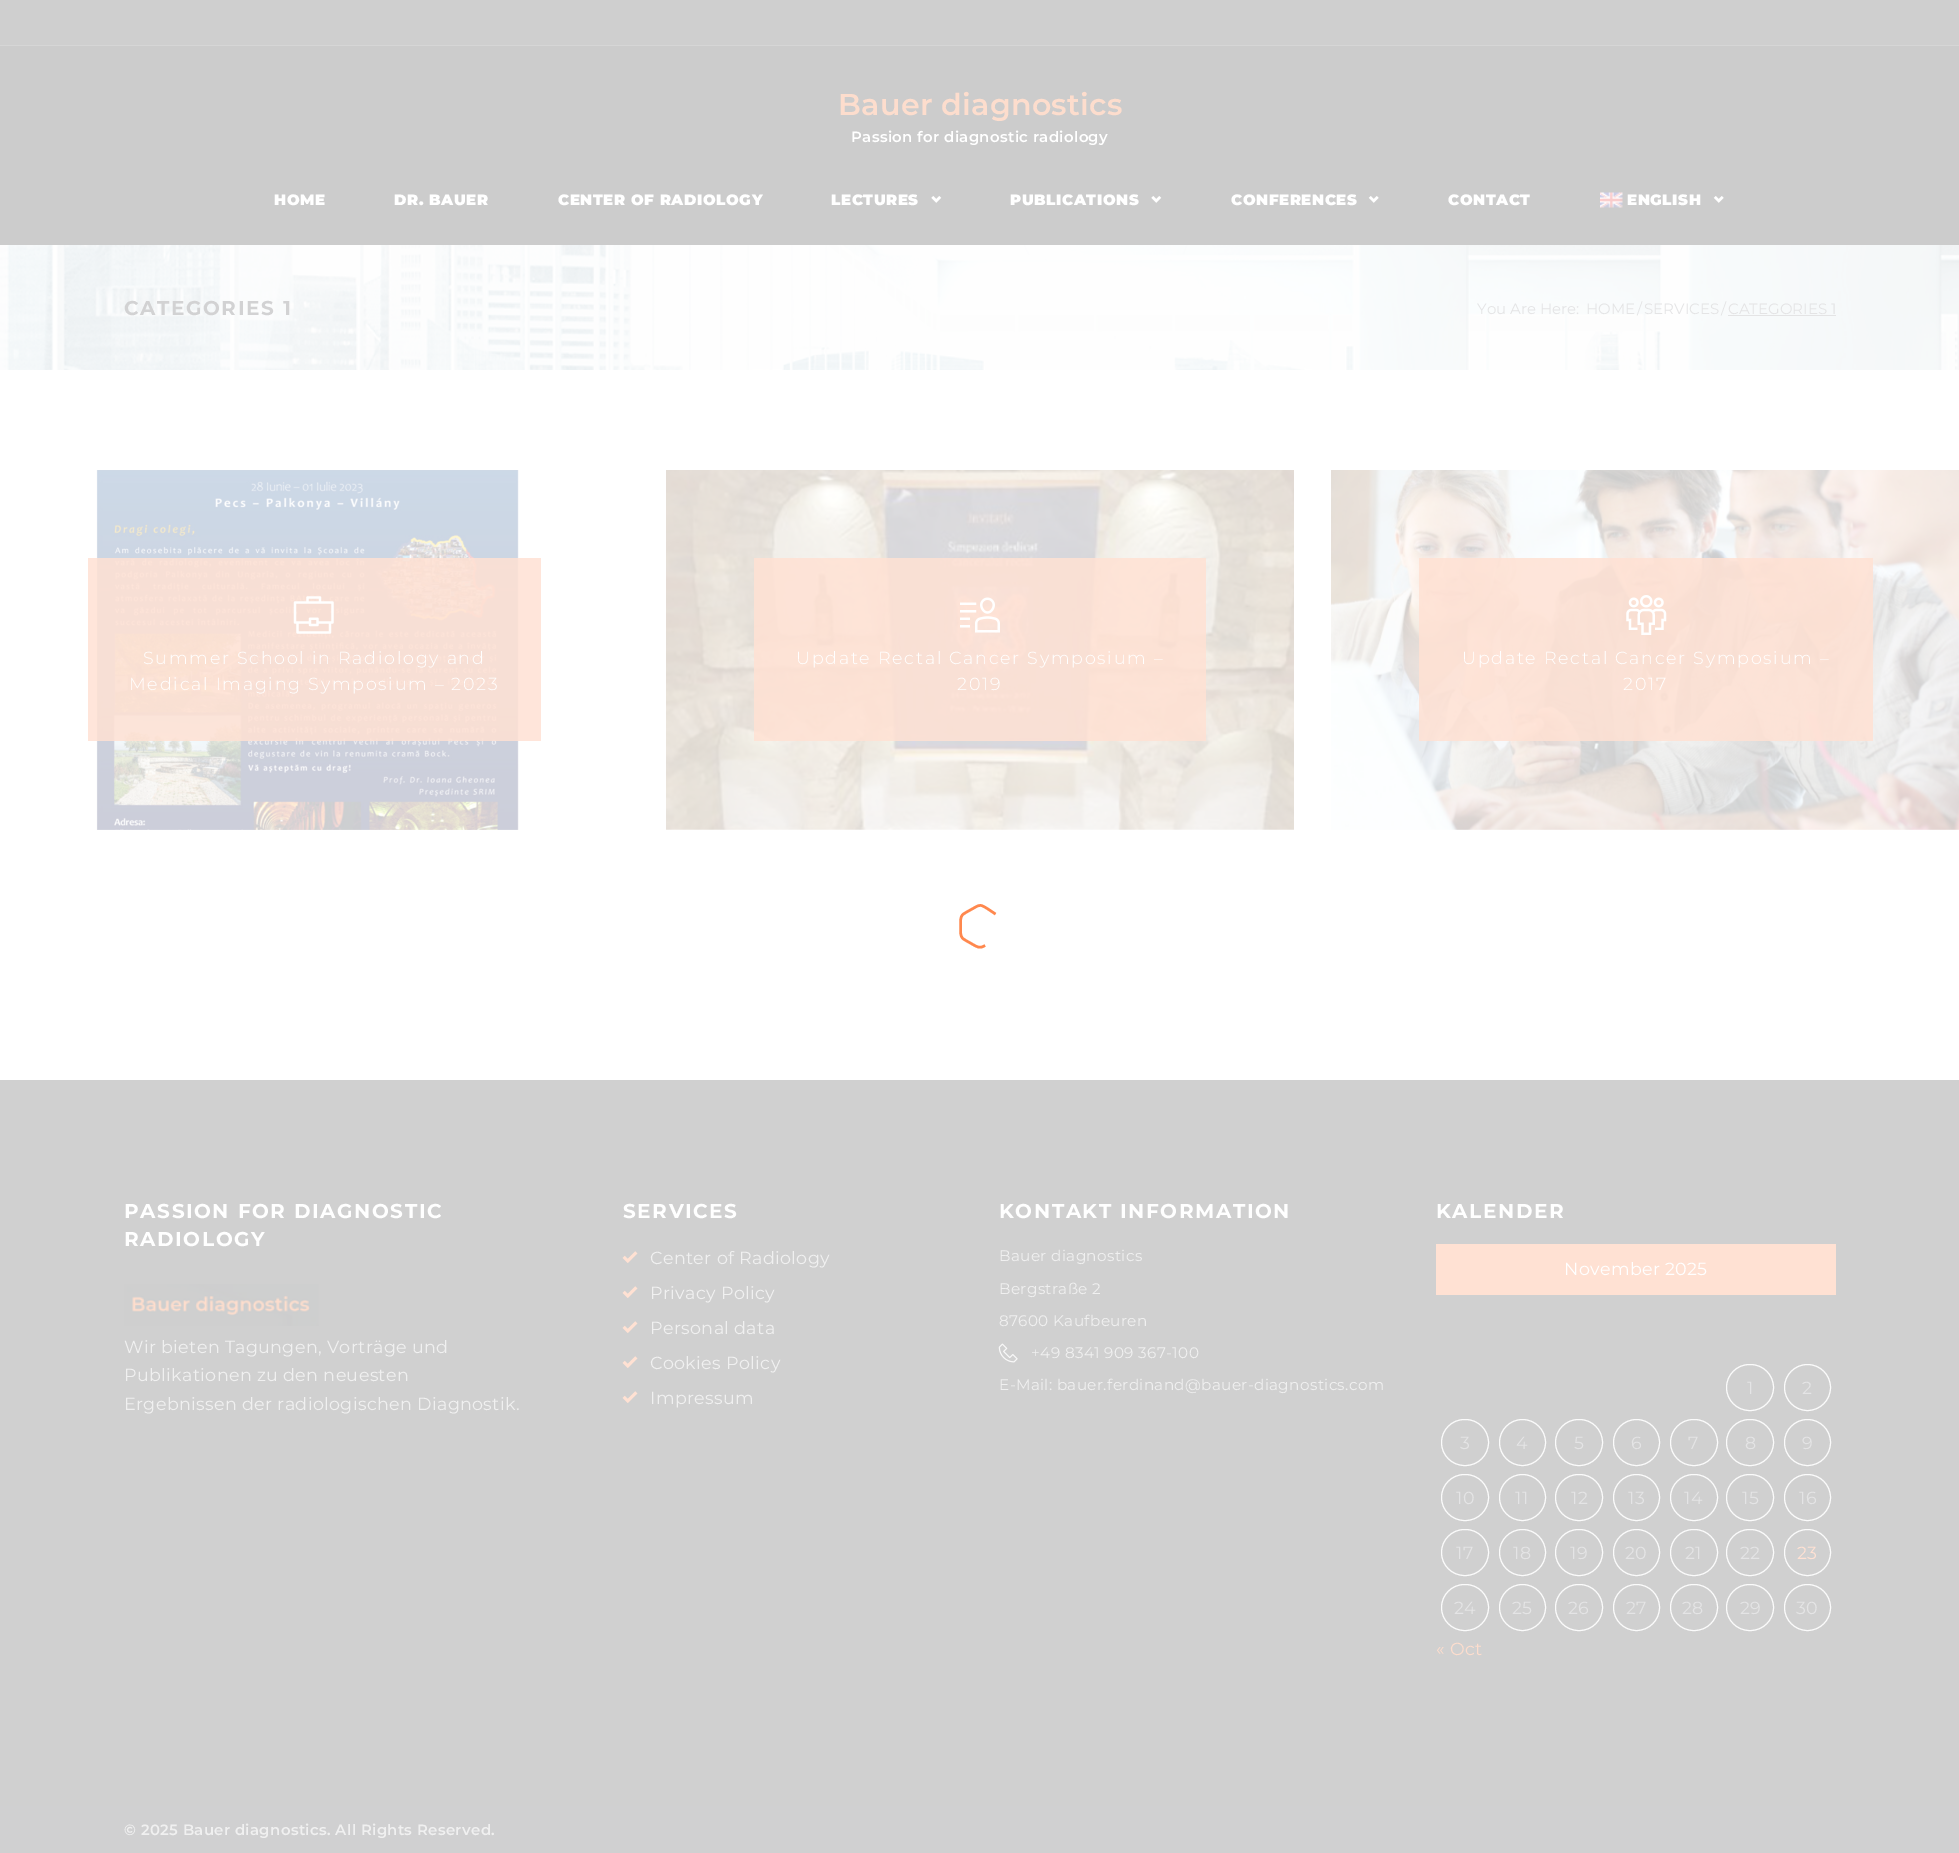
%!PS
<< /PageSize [1959 1853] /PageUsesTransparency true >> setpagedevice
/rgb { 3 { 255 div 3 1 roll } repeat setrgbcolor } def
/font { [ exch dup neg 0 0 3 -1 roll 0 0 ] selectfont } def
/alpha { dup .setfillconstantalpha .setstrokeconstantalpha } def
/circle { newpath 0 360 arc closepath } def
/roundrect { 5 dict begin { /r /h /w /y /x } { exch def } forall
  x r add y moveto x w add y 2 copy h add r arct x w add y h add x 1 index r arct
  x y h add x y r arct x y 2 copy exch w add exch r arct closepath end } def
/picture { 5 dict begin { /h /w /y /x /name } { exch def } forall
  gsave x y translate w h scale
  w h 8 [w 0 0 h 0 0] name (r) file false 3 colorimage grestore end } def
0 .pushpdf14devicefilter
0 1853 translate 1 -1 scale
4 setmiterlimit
255 255 255 rgb
0 0 1959 1853 rectfill
[
  [0 0 1959 45 207 207 207]
  [0 45 1959 1 214 214 214]
  [0 46 1959 199 204 204 204]
] { aload pop rgb rectfill } forall
(img/1.rgb) 931 196 11 7 picture
(img/1.rgb) 1151 196 11 7 picture
(img/2.rgb) 1368 196 11 7 picture
(img/3.rgb) 1600 192 23 16 picture
(img/2.rgb) 1713 196 11 7 picture
(img/4.rgb) 0 245 1959 125 picture
228 228 229 rgb
1728 315 108 1 rectfill
(img/5.rgb) 96 470 423 360 picture
0.85 alpha
255 225 211 rgb
88 558 453 183 rectfill
1 alpha
(img/6.rgb) 293 596 41 38 picture
(img/7.rgb) 666 470 628 360 picture
0.85 alpha
754 558 452 183 rectfill
1 alpha
(img/8.rgb) 960 597 40 36 picture
(img/9.rgb) 1331 470 628 360 picture
0.85 alpha
1419 558 454 183 rectfill
1 alpha
(img/10.rgb) 1626 595 41 40 picture
208 208 209 rgb
0 1806 1959 47 rectfill
208 208 208 rgb
0 1080 1959 726 rectfill
(img/11.rgb) 124 1284 195 42 picture
(img/12.rgb) 622 1251 16 13 picture
(img/12.rgb) 622 1286 16 13 picture
(img/12.rgb) 622 1321 16 13 picture
(img/12.rgb) 622 1356 16 13 picture
(img/12.rgb) 622 1391 16 13 picture
(img/13.rgb) 998 1343 20 20 picture
255 225 211 rgb
1436 1244 400 51 rectfill
251 251 251 rgb
1726.5 1364.5 47 46 23 roundrect stroke
1441.5 1419.5 47 46 23 roundrect stroke
1555.5 1419.5 47 46 23 roundrect stroke
1670.5 1419.5 47 46 23 roundrect stroke
1726.5 1419.5 47 46 23 roundrect stroke
1441.5 1474.5 47 46 23 roundrect stroke
1555.5 1474.5 47 46 23 roundrect stroke
1670.5 1474.5 47 46 23 roundrect stroke
1726.5 1474.5 47 46 23 roundrect stroke
1441.5 1529.5 47 46 23 roundrect stroke
1555.5 1529.5 47 46 23 roundrect stroke
1670.5 1529.5 47 46 23 roundrect stroke
1726.5 1529.5 47 46 23 roundrect stroke
1441.5 1584.5 47 46 23 roundrect stroke
1555.5 1584.5 47 46 23 roundrect stroke
1670.5 1584.5 47 46 23 roundrect stroke
1726.5 1584.5 47 46 23 roundrect stroke
255 136 78 rgb
2.5 setlinewidth
1 setlinejoin
995.5 914 moveto 992 912 984.5 906 981 905.5 curveto 977.5 905 974.5 908 972 909 curveto 961 915.5 960.5 913.5 960.5 926.5 curveto 960.5 939.5 961 937.5 972 944 curveto 977.5 947 979.5 949 985 945.5 curveto stroke
/Montserrat-SemiBold 30 font
253 221 205 rgb
838 115 moveto 0.35 0 (Bauer diagnostics) ashow
/Montserrat-SemiBold 14.9 font
255 255 255 rgb
851 142 moveto 0.35 0 (Passion for diagnostic radiology) ashow
/Montserrat-Black 15 font
274 205 moveto 0.6 0 (HOME) ashow
394 205 moveto 0.6 0 (DR. BAUER) ashow
558 205 moveto 0.6 0 (CENTER OF RADIOLOGY) ashow
831 205 moveto 0.6 0 (LECTURES) ashow
1010 205 moveto 0.6 0 (PUBLICATIONS) ashow
1231 205 moveto 0.6 0 (CONFERENCES) ashow
1448 205 moveto 0.6 0 (CONTACT) ashow
1627 205 moveto 0.6 0 (ENGLISH) ashow
/Montserrat-Bold 20 font
210 210 211 rgb
124 315 moveto 1.6 0 (CATEGORIES 1) ashow
/Montserrat-Regular 15 font
228 228 229 rgb
[
  [(You Are Here:) 1477 314]
  [(HOME) 1586 314]
  [(/) 1637 314]
  [(SERVICES) 1644 314]
  [(/) 1721 314]
  [(CATEGORIES 1) 1728 314]
] { aload pop moveto show } forall
/Montserrat-Light 17.5 font
255 255 255 rgb
143 664 moveto 1.75 0 (Summer School in Radiology and) ashow
129 690 moveto 1.75 0 (Medical Imaging Symposium – 2023) ashow
796 664 moveto 1.75 0 (Update Rectal Cancer Symposium –) ashow
957 690 moveto 1.75 0 (2019) ashow
1462 664 moveto 1.75 0 (Update Rectal Cancer Symposium –) ashow
1623 690 moveto 1.75 0 (2017) ashow
/Montserrat-Bold 20 font
124 1218 moveto 1.6 0 (PASSION FOR DIAGNOSTIC) ashow
124 1246 moveto 1.6 0 (RADIOLOGY) ashow
/Montserrat-Regular 17.5 font
240 240 240 rgb
124 1353 moveto 0.35 0 (Wir bieten Tagungen, Vorträge und) ashow
124 1381 moveto 0.35 0 (Publikationen zu den neuesten) ashow
124 1410 moveto 0.35 0 (Ergebnissen der radiologischen Diagnostik.) ashow
/Montserrat-Bold 20 font
255 255 255 rgb
623 1218 moveto 1.6 0 (SERVICES) ashow
/Montserrat-Regular 17.5 font
240 240 240 rgb
650 1264 moveto 0.35 0 (Center of Radiology) ashow
650 1299 moveto 0.35 0 (Privacy Policy) ashow
650 1334 moveto 0.35 0 (Personal data) ashow
650 1369 moveto 0.35 0 (Cookies Policy) ashow
650 1404 moveto 0.35 0 (Impressum) ashow
/Montserrat-Bold 20 font
255 255 255 rgb
999 1218 moveto 1.6 0 (KONTAKT INFORMATION) ashow
/Montserrat-Regular 15.25 font
240 240 240 rgb
999 1261 moveto 0.35 0 (Bauer diagnostics) ashow
999 1294 moveto 0.35 0 (Bergstraße 2) ashow
999 1326 moveto 0.35 0 (87600 Kaufbeuren) ashow
1031 1358 moveto 0.35 0 (+49 8341 909 367-100) ashow
999 1390 moveto 0.35 0 (E-Mail: bauer.ferdinand@bauer-diagnostics.com) ashow
/Montserrat-Bold 20 font
255 255 255 rgb
1436 1218 moveto 1.6 0 (KALENDER) ashow
/Montserrat-Regular 17.5 font
1564 1275 moveto 0.35 0 (November 2025) ashow
228 228 229 rgb
1747 1394 moveto 0.35 0 (1) ashow
1802 1394 moveto 0.35 0 (2) ashow
251 251 251 rgb
1 setlinewidth
0 setlinejoin
1807.5 1387.5 23 circle stroke
228 228 229 rgb
1460 1449 moveto 0.35 0 (3) ashow
1516 1449 moveto 0.35 0 (4) ashow
251 251 251 rgb
1522.5 1442.5 23 circle stroke
228 228 229 rgb
1574 1449 moveto 0.35 0 (5) ashow
1631 1449 moveto 0.35 0 (6) ashow
251 251 251 rgb
1636.5 1442.5 23 circle stroke
228 228 229 rgb
1688 1449 moveto 0.35 0 (7) ashow
1745 1449 moveto 0.35 0 (8) ashow
1802 1449 moveto 0.35 0 (9) ashow
251 251 251 rgb
1807.5 1442.5 23 circle stroke
228 228 229 rgb
1456 1504 moveto 0.35 0 (10) ashow
1515 1504 moveto 0.35 0 (11) ashow
251 251 251 rgb
1522.5 1497.5 23 circle stroke
228 228 229 rgb
1571 1504 moveto 0.35 0 (12) ashow
1628 1504 moveto 0.35 0 (13) ashow
251 251 251 rgb
1636.5 1497.5 23 circle stroke
228 228 229 rgb
1684 1504 moveto 0.35 0 (14) ashow
1742 1504 moveto 0.35 0 (15) ashow
1799 1504 moveto 0.35 0 (16) ashow
251 251 251 rgb
1807.5 1497.5 23 circle stroke
228 228 229 rgb
1456 1559 moveto 0.35 0 (17) ashow
1513 1559 moveto 0.35 0 (18) ashow
251 251 251 rgb
1522.5 1552.5 23 circle stroke
228 228 229 rgb
1570 1559 moveto 0.35 0 (19) ashow
1625 1559 moveto 0.35 0 (20) ashow
251 251 251 rgb
1636.5 1552.5 23 circle stroke
228 228 229 rgb
1685 1559 moveto 0.35 0 (21) ashow
1740 1559 moveto 0.35 0 (22) ashow
255 225 211 rgb
1797 1559 moveto 0.35 0 (23) ashow
251 251 251 rgb
1807.5 1552.5 23 circle stroke
228 228 229 rgb
1454 1614 moveto 0.35 0 (24) ashow
1512 1614 moveto 0.35 0 (25) ashow
251 251 251 rgb
1522.5 1607.5 23 circle stroke
228 228 229 rgb
1568 1614 moveto 0.35 0 (26) ashow
1626 1614 moveto 0.35 0 (27) ashow
251 251 251 rgb
1636.5 1607.5 23 circle stroke
228 228 229 rgb
1682 1614 moveto 0.35 0 (28) ashow
1740 1614 moveto 0.35 0 (29) ashow
1796 1614 moveto 0.35 0 (30) ashow
251 251 251 rgb
1807.5 1607.5 23 circle stroke
253 221 205 rgb
1436 1655 moveto 0.35 0 (« Oct) ashow
/Montserrat-SemiBold 14.9 font
240 240 240 rgb
124 1835 moveto 0.35 0 (© 2025 Bauer diagnostics. All Rights Reserved.) ashow
.poppdf14devicefilter showpage
